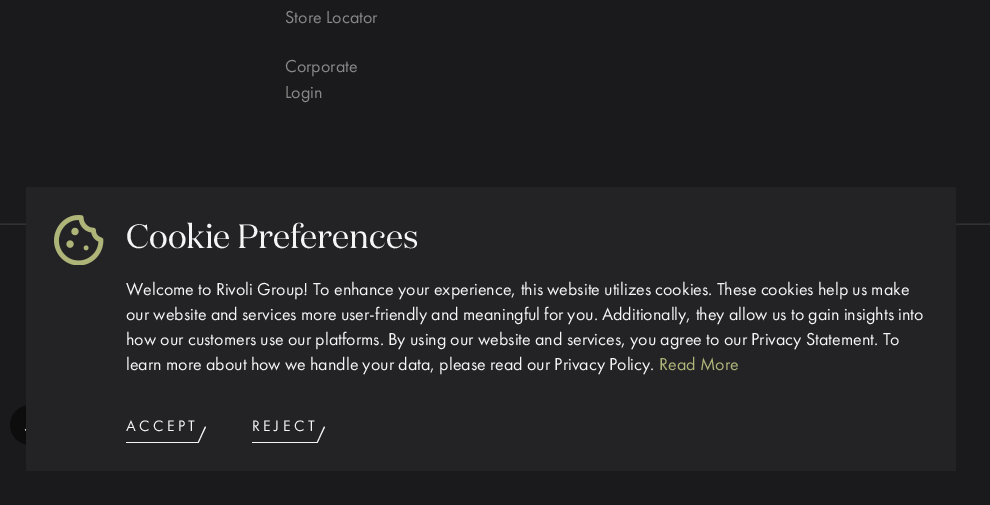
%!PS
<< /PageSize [990 505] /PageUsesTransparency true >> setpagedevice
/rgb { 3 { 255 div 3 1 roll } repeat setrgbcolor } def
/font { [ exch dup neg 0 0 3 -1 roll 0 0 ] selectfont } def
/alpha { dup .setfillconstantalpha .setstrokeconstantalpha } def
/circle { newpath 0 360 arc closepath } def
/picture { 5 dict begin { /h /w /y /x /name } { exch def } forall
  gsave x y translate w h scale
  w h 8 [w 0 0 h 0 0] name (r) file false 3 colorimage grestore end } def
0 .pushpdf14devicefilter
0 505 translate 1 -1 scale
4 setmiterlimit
26 26 28 rgb
0 0 990 505 rectfill
40 40 42 rgb
0 223 moveto 990 223 lineto 989 224 lineto 1 224 lineto closepath fill
0.1 alpha
255 255 255 rgb
990 223 moveto 990 225 lineto 989 224 lineto closepath fill
990 225 moveto 0 225 lineto 1 224 lineto 989 224 lineto closepath fill
170 170 170 rgb
0 225 moveto 0 223 lineto 1 224 lineto closepath fill
1 alpha
13 13 14 rgb
30 425 20 circle fill
(img/1.rgb) 24 428 2 3 picture
35 35 37 rgb
26 187 930 284 rectfill
(img/2.rgb) 54 215 50 50 picture
245 245 245 rgb
126 442 72 1 rectfill
197.5 443 moveto 205 426.5 lineto 206 427 lineto 198.5 443 lineto closepath fill
252 442 65 1 rectfill
316.5 443 moveto 324 426.5 lineto 325 427 lineto 317.5 443 lineto closepath fill
/FuturaPT-Regular 18 font
136 136 137 rgb
[
  [(Store Locator) 285 23]
  [(Corporate) 285 72]
  [(Login) 285 98]
] { aload pop moveto show } forall
/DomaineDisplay-Regular 33.75 font
245 245 245 rgb
126 248 moveto (Cookie Preferences) show
/FuturaPT-Regular 18 font
[
  [(Welcome to Rivoli Group! To enhance your experience, this website utilizes cookies. These cookies help us make) 126 295]
  [(our website and services more user-friendly and meaningful for you. Additionally, they allow us to gain insights into) 126 320]
  [(how our customers use our platforms. By using our website and services, you agree to our Privacy Statement. To) 126 345]
  [(learn more about how we handle your data, please read our Privacy Policy.) 126 370]
] { aload pop moveto show } forall
175 180 120 rgb
659 370 moveto (Read More) show
/FuturaPT-Regular 15.75 font
245 245 245 rgb
126 431 moveto 3.5 0 (ACCEPT) ashow
252 431 moveto 3.5 0 (REJECT) ashow
.poppdf14devicefilter showpage
